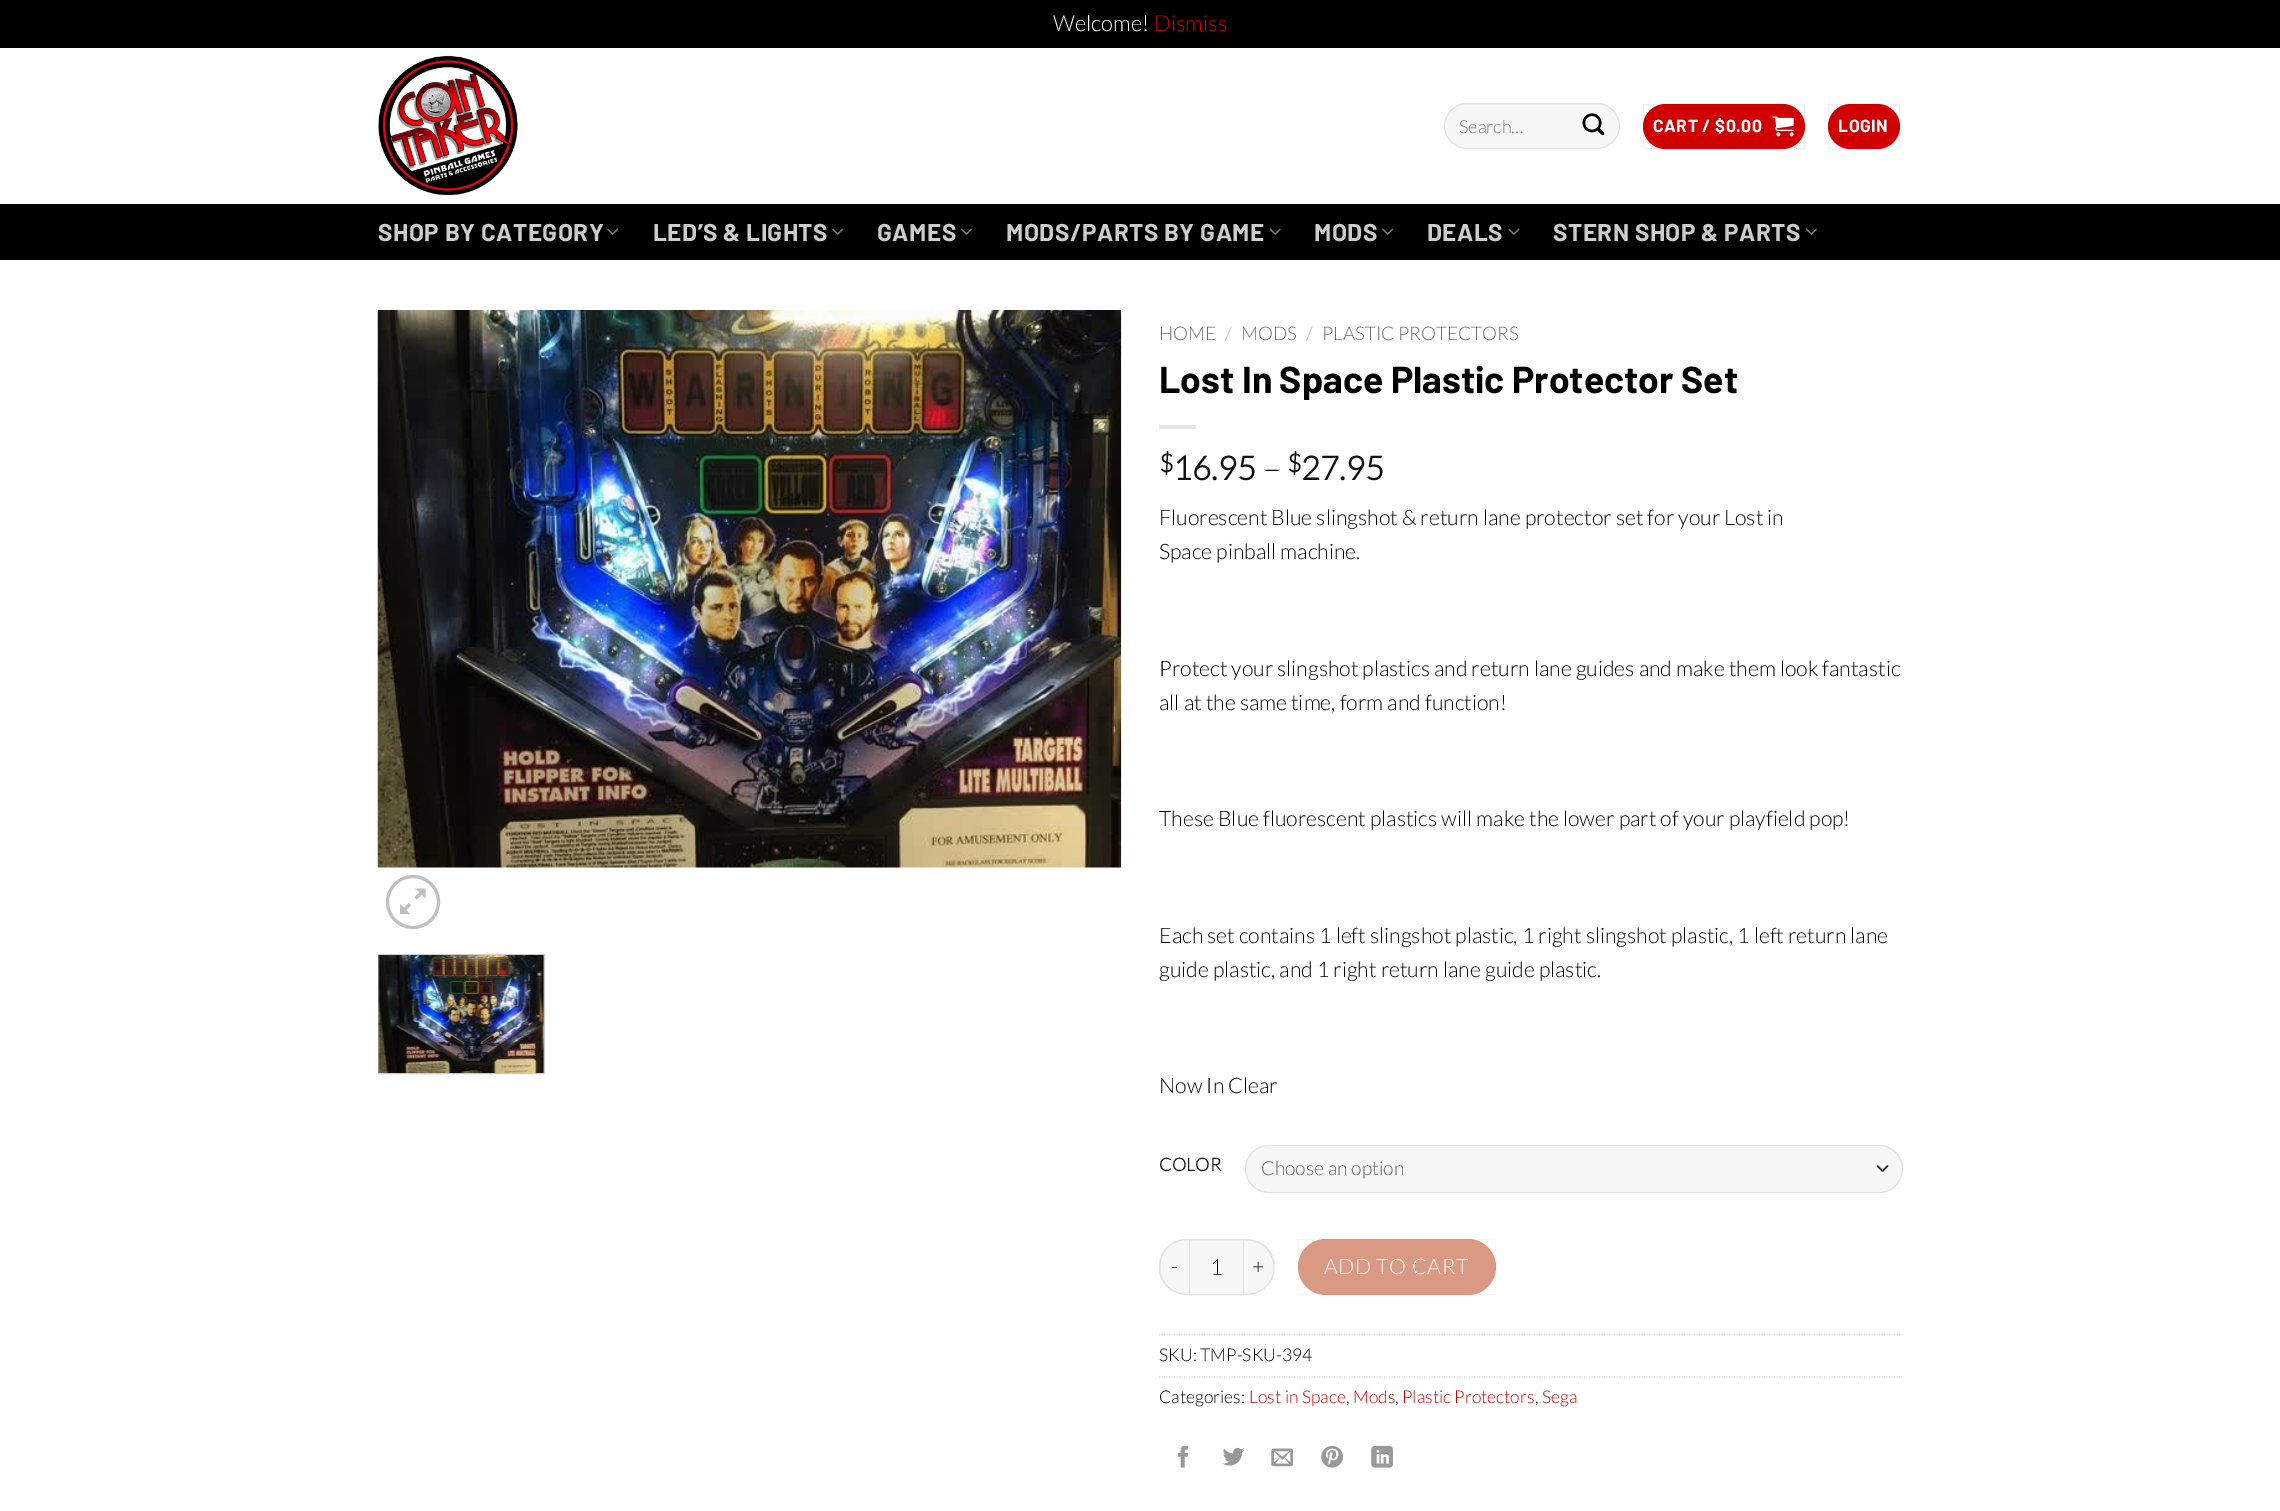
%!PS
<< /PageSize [2280 1511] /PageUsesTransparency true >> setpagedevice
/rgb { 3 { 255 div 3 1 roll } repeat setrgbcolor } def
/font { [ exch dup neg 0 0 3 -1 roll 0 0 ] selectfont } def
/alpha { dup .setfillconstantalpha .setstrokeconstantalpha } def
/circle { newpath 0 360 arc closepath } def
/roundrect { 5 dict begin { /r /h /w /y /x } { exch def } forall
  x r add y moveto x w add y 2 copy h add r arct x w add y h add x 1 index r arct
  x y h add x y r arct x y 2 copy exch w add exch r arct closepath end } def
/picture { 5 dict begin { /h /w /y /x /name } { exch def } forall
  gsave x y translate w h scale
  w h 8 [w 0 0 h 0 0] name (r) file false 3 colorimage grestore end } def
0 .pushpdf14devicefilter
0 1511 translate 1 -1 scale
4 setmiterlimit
0 0 0 rgb
0 0 2280 1511 rectfill
255 255 255 rgb
0 48 2280 1463 rectfill
(img/1.rgb) 378 55 140 141 picture
247 247 247 rgb
1444 103 176 46 23 roundrect fill
0.09 alpha
0 0 0 rgb
1444.5 103.5 175 45 22.5 roundrect stroke
1 alpha
(img/2.rgb) 1582 113 23 23 picture
208 0 0 rgb
1643 104 162 45 22.5 roundrect fill
0.05 alpha
0 0 0 rgb
1643.5 104.5 161 44 rectstroke
1 alpha
(img/3.rgb) 1772 116 22 21 picture
208 0 0 rgb
1828 104 72 45 22.5 roundrect fill
0.05 alpha
0 0 0 rgb
1828.5 104.5 71 44 rectstroke
1 alpha
0 204 2280 56 rectfill
(img/4.rgb) 607 228 12 7 picture
(img/4.rgb) 832 228 12 7 picture
(img/5.rgb) 961 228 11 7 picture
(img/6.rgb) 1269 228 12 7 picture
(img/4.rgb) 1382 228 12 7 picture
(img/7.rgb) 1508 228 12 7 picture
(img/5.rgb) 1806 228 11 7 picture
(img/8.rgb) 377 310 745 558 picture
192 192 192 rgb
3 setlinewidth
413 902 25.5 circle stroke
(img/9.rgb) 400 888 26 27 picture
204 204 204 rgb
1 setlinewidth
378.5 954.5 166 119 rectstroke
(img/10.rgb) 378 955 166 118 picture
230 230 230 rgb
1159 425 37 4 rectfill
247 247 247 rgb
1245 1145 658 48 24 roundrect fill
51 51 51 rgb
1.7 setlinewidth
1 setlinecap
1 setlinejoin
1877.5 1166 moveto 1882.5 1171 lineto 1887.5 1166 lineto stroke
0.09 alpha
0 0 0 rgb
1 setlinewidth
0 setlinecap
0 setlinejoin
1245.5 1145.5 657 47 23.5 roundrect stroke
1 alpha
247 247 247 rgb
1187 1239 moveto 1189 1239 lineto 1189 1295 lineto 1187 1295 lineto 1171.5 1295 1159 1282.5 1159 1267 curveto 1159 1251.5 1171.5 1239 1187 1239 curveto closepath fill
0.09 alpha
0 0 0 rgb
1187 1239 moveto 1189 1239 lineto 1189 1295 lineto 1148 1295 1150 1239 1187 1239 curveto closepath 1187 1240 moveto 1189 1240 lineto 1189 1294 lineto 1150 1294 1152 1240 1187 1240 curveto closepath eofill
1 alpha
247 247 247 rgb
1189.5 1239.5 moveto 1243.5 1239.5 lineto 1243.5 1294.5 lineto 1189.5 1294.5 lineto closepath gsave fill grestore
225 225 225 rgb
stroke
247 247 247 rgb
1244 1239 moveto 1247 1239 lineto 1262.5 1239 1275 1251.5 1275 1267 curveto 1275 1282.5 1262.5 1295 1247 1295 curveto 1244 1295 lineto closepath fill
225 225 225 rgb
1244 1239 moveto 1285 1239 1285 1295 1244 1295 curveto closepath 1244 1240 moveto 1252 1241 lineto 1278 1246 1281 1282 1257 1292 curveto 1253 1293 1248 1294 1244 1294 curveto closepath eofill
217 153 131 rgb
1298 1239 198 56 28 roundrect fill
0.05 alpha
102 102 102 rgb
1298.5 1239.5 197 55 rectstroke
1 alpha
221 221 221 rgb
1.2 setlinewidth
[1.25 1.25] 0 setdash
1159 1334.5 moveto 1902.5 1334.5 lineto stroke
1159 1377 moveto 1902.5 1377 lineto stroke
(img/11.rgb) 1177 1445 12 23 picture
(img/12.rgb) 1222 1447 22 19 picture
(img/13.rgb) 1271 1448 22 19 picture
(img/14.rgb) 1321 1445 22 23 picture
(img/15.rgb) 1371 1445 22 23 picture
/Lato-Light 22 font
255 255 255 rgb
1053 31 moveto (Welcome!) show
208 0 0 rgb
1154 31 moveto (Dismiss) show
/Lato-Light 18 font
117 117 117 rgb
1459 133 moveto (Search…) show
/Barlow-Bold 17.5 font
255 255 255 rgb
1653 132 moveto 0.5 0 (CART / $0.00) ashow
1838 132 moveto 0.5 0 (LOGIN) ashow
/Barlow-Bold 24.25 font
204 204 204 rgb
378 241 moveto 0.5 0 (SHOP BY CATEGORY) ashow
653 241 moveto 0.5 0 (LED’S & LIGHTS) ashow
877 241 moveto 0.5 0 (GAMES) ashow
1006 241 moveto 0.5 0 (MODS/PARTS BY GAME) ashow
1314 241 moveto 0.5 0 (MODS) ashow
1427 241 moveto 0.5 0 (DEALS) ashow
1553 241 moveto 0.5 0 (STERN SHOP & PARTS) ashow
/Lato-Light 18.75 font
110 110 110 rgb
1159 340 moveto (HOME) show
178 178 178 rgb
1225 340 moveto (/) show
110 110 110 rgb
1241 340 moveto (MODS) show
178 178 178 rgb
1306 340 moveto (/) show
110 110 110 rgb
1322 340 moveto (PLASTIC PROTECTORS) show
/Barlow-Bold 37.4 font
0 0 0 rgb
1159 393 moveto (Lost In Space Plastic Protector Set) show
/Lato-Bold 25 font
17 17 17 rgb
1159 472 moveto ($) show
/Lato-Bold 33 font
1173 480 moveto (16.95) show
/Lato-Light 33 font
0 0 0 rgb
1263 480 moveto (–) show
/Lato-Bold 25 font
17 17 17 rgb
1287 472 moveto ($) show
/Lato-Bold 33 font
1301 480 moveto (27.95) show
/Lato-Light 21.25 font
0 0 0 rgb
[
  [(Fluorescent Blue slingshot & return lane protector set for your Lost in) 1159 525]
  [(Space pinball machine.) 1159 559]
  [(Protect your slingshot plastics and return lane guides and make them look fantastic) 1159 676]
  [(all at the same time, form and function!) 1159 710]
  [(These Blue fluorescent plastics will make the lower part of your playfield pop!) 1159 826]
  [(Each set contains 1 left slingshot plastic, 1 right slingshot plastic, 1 left return lane) 1159 943]
  [(guide plastic, and 1 right return lane guide plastic.) 1159 977]
  [(Now In Clear) 1159 1093]
] { aload pop moveto show } forall
/Lato-Bold 18 font
34 34 34 rgb
1159 1171 moveto (COLOR) show
/Lato-Light 19.25 font
102 102 102 rgb
1261 1175 moveto (Choose an option) show
/Lato-Light 21.25 font
0 0 0 rgb
1171 1274 moveto 0.6 0 (-) ashow
/Lato-Light 22 font
1210 1275 moveto (1) show
/Lato-Light 21.25 font
1252 1274 moveto 0.6 0 (+) ashow
255 255 255 rgb
1324 1274 moveto 0.6 0 (ADD TO CART) ashow
/Lato-Light 17.5 font
0 0 0 rgb
1159 1361 moveto (SKU: TMP-SKU-394) show
1159 1403 moveto (Categories:) show
208 0 0 rgb
1249 1403 moveto (Lost in Space) show
0 0 0 rgb
1346 1403 moveto (,) show
208 0 0 rgb
1353 1403 moveto (Mods) show
0 0 0 rgb
1395 1403 moveto (,) show
208 0 0 rgb
1402 1403 moveto (Plastic Protectors) show
0 0 0 rgb
1535 1403 moveto (,) show
208 0 0 rgb
1542 1403 moveto (Sega) show
.poppdf14devicefilter showpage
